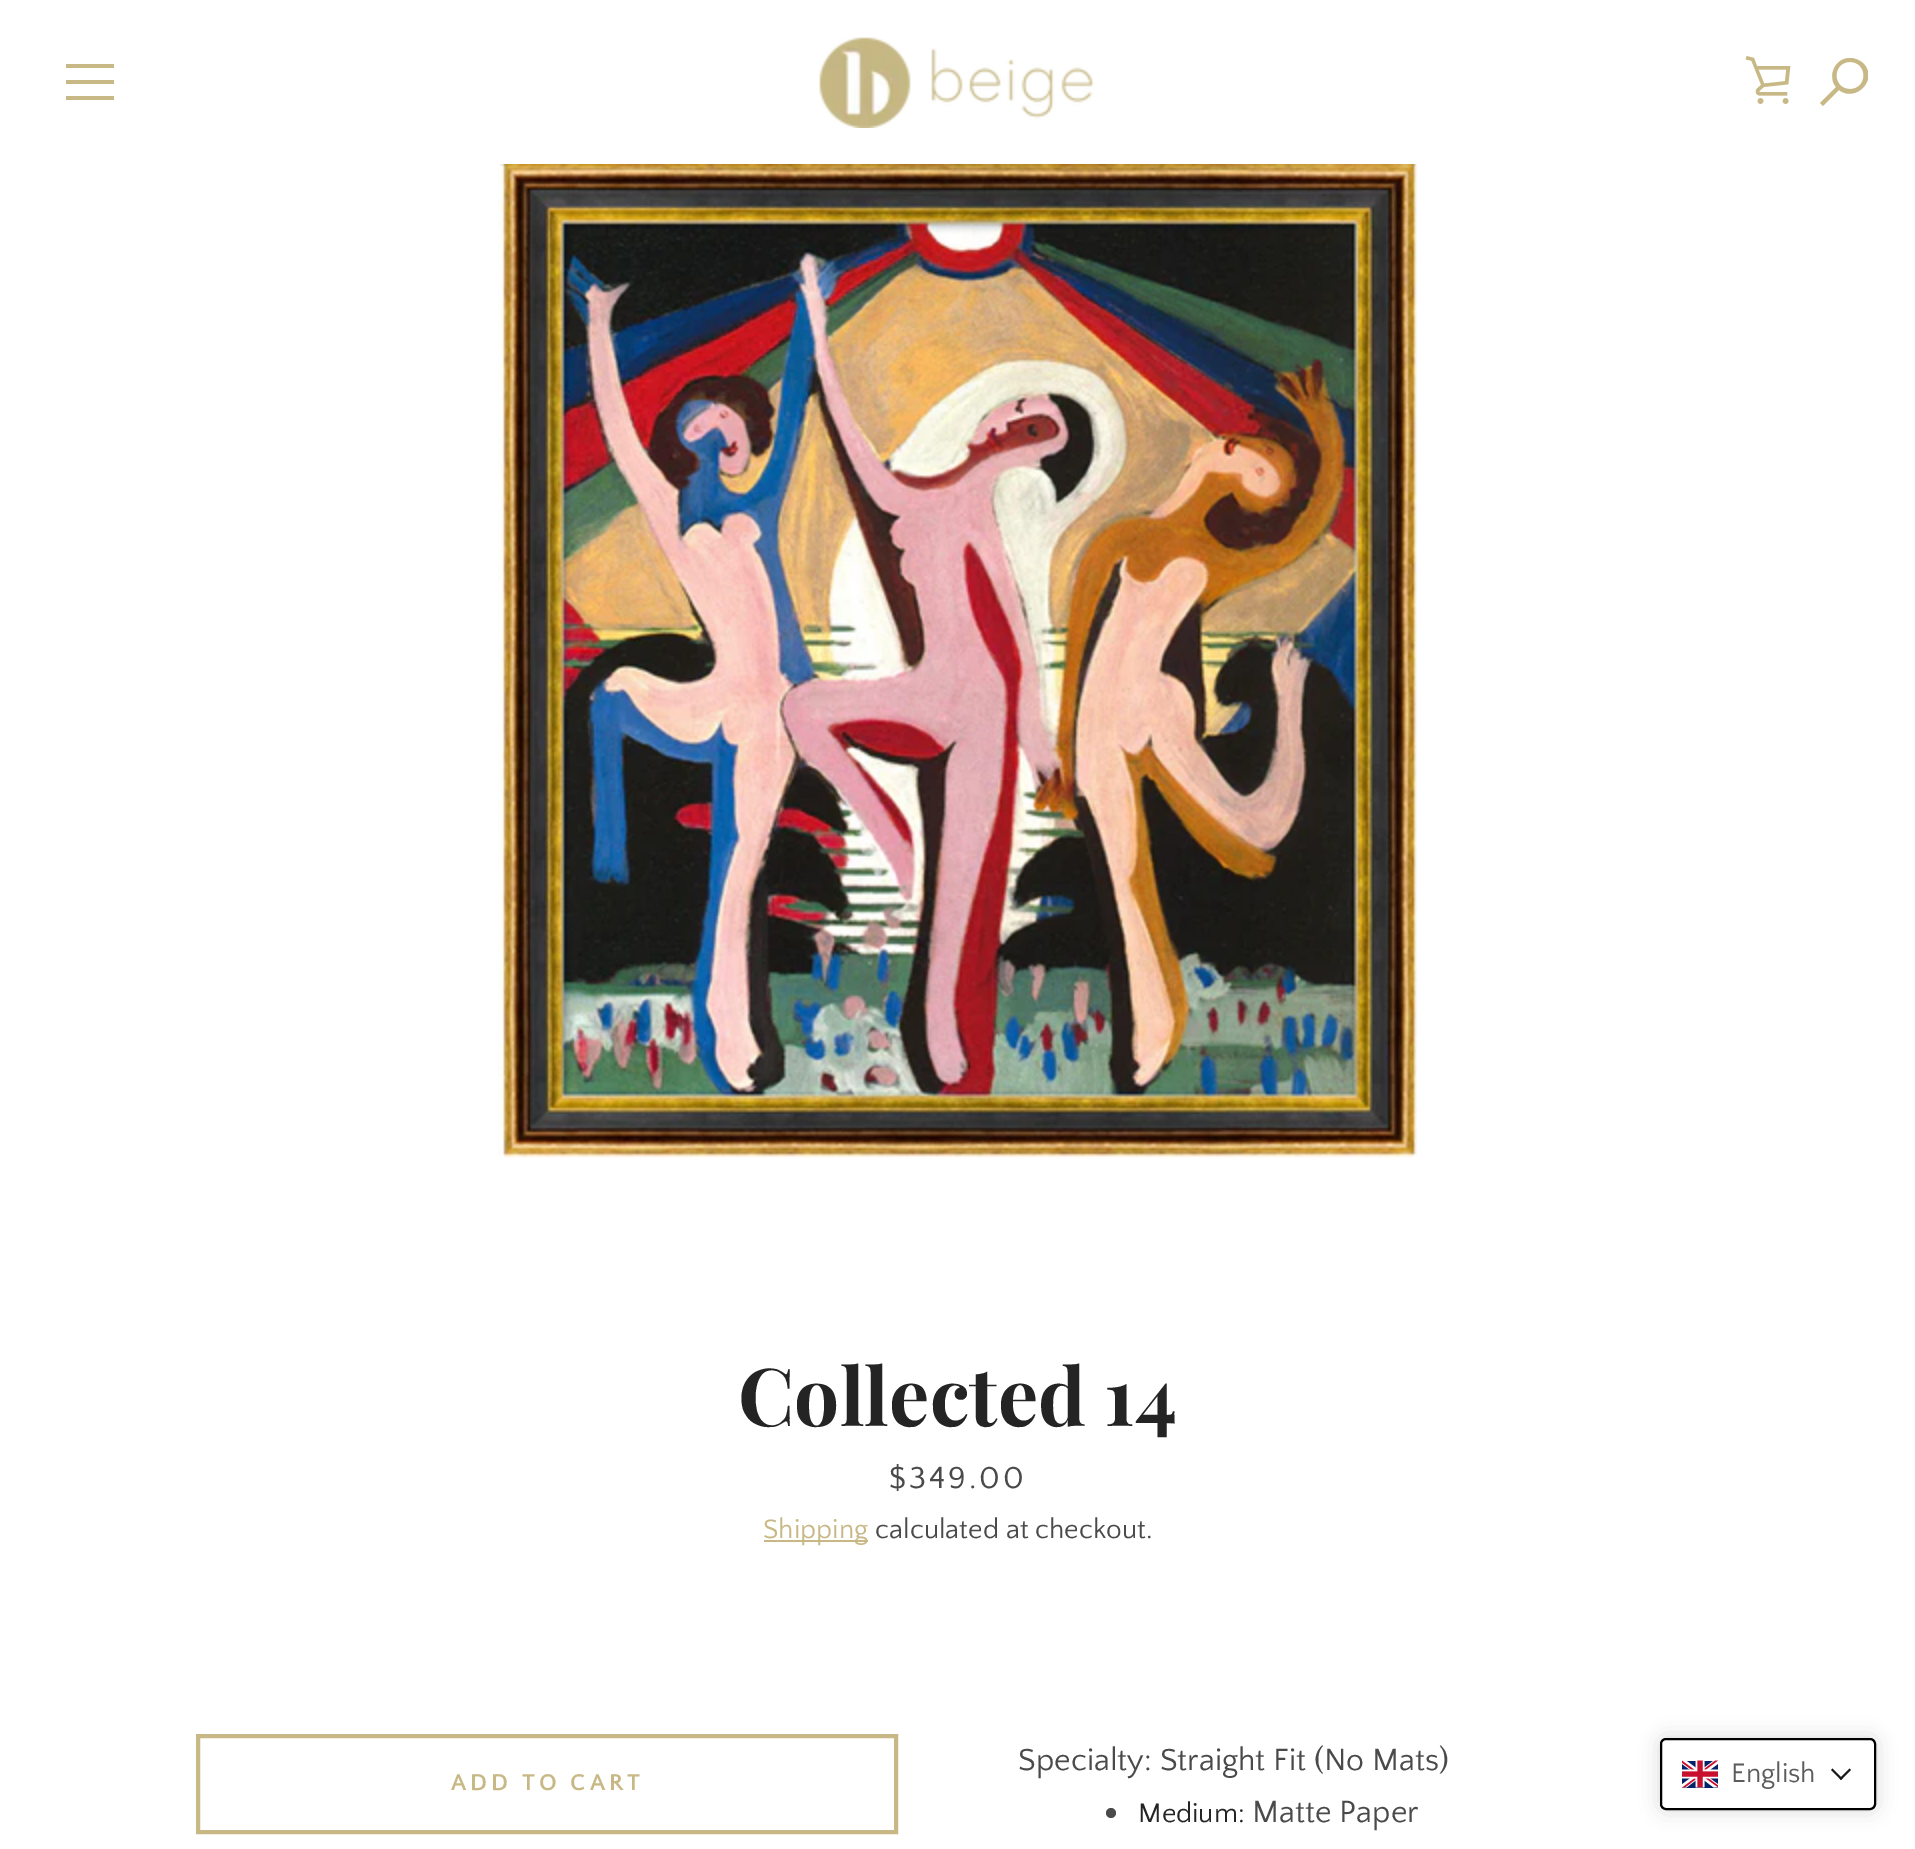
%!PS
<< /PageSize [1915 1849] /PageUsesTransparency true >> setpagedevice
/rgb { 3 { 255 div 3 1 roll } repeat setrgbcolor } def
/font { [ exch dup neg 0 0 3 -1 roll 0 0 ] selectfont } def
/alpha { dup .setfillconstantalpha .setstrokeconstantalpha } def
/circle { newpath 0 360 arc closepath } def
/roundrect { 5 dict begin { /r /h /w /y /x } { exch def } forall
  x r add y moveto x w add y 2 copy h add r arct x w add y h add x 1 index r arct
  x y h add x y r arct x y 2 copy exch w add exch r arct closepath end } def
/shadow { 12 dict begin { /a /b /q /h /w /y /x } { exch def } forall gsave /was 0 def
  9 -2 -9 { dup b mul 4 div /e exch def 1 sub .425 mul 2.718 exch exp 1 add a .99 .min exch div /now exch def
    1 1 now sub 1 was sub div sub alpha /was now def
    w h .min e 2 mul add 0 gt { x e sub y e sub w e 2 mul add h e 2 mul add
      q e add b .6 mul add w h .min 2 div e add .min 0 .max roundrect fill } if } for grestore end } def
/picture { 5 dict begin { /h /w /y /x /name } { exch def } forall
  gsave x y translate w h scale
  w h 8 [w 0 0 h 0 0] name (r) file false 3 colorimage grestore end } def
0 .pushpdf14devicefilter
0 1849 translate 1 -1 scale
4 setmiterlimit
255 255 255 rgb
0 0 1915 1849 rectfill
[
  [66 64 48 4 199 184 133]
  [66 80 48 4 199 184 133]
  [66 96 48 4 199 184 133]
] { aload pop rgb rectfill } forall
(img/1.rgb) 819 37 275 91 picture
(img/2.rgb) 1745 56 46 48 picture
gsave
1820 58 48 48 rectclip
1850 58 moveto 1835 58 1827 76 1836 87 curveto 1820 103 lineto 1823 106 lineto 1839 90 lineto 1856 103 1879 79 1863 63 curveto 1859 60 1855 58 1850 58 curveto closepath 1850 89 moveto 1832 89 1832 62 1850 62 curveto 1868 62 1868 89 1850 89 curveto closepath fill
grestore
(img/3.rgb) 498 164 920 994 picture
764 1540 104 2 rectfill
4 setlinewidth
198 1736 698 96 rectstroke
74 74 74 rgb
1111 1813 5 circle fill
0 0 0 rgb
1660 1738 216 72 6 10 0.15 shadow
255 255 255 rgb
1661 1739 214 70 5 roundrect gsave fill grestore
0 0 0 rgb
2 setlinewidth
stroke
(img/4.rgb) 1682 1760 36 28 picture
26 26 26 rgb
1849.5 1768.5 moveto 1851 1770 lineto 1841 1780 lineto 1839.5 1778.5 lineto closepath fill
1832.5 1768.5 moveto 1842.5 1778.5 lineto 1841 1780 lineto 1831 1770 lineto closepath fill
/PlayfairDisplay-Bold 80 font
36 36 36 rgb
738 1426 moveto (Collected 14) show
/QuattrocentoSans-Regular 32 font
74 74 74 rgb
889 1488 moveto 3 0 ($349.00) ashow
/QuattrocentoSans-Regular 28 font
199 184 133 rgb
763 1538 moveto (Shipping) show
74 74 74 rgb
875 1538 moveto (calculated at checkout.) show
/QuattrocentoSans-Bold 24 font
199 184 133 rgb
451 1790 moveto 4 0 (ADD TO CART) ashow
/QuattrocentoSans-Regular 32 font
74 74 74 rgb
1018 1770 moveto (Specialty: Straight Fit \(No Mats\)) show
/QuattrocentoSans-Regular 28 font
36 36 36 rgb
1138 1822 moveto (Medium:) show
/QuattrocentoSans-Regular 32 font
74 74 74 rgb
1252 1822 moveto (Matte Paper) show
/QuattrocentoSans-Regular 28 font
92 92 92 rgb
1731 1782 moveto (English) show
.poppdf14devicefilter showpage
